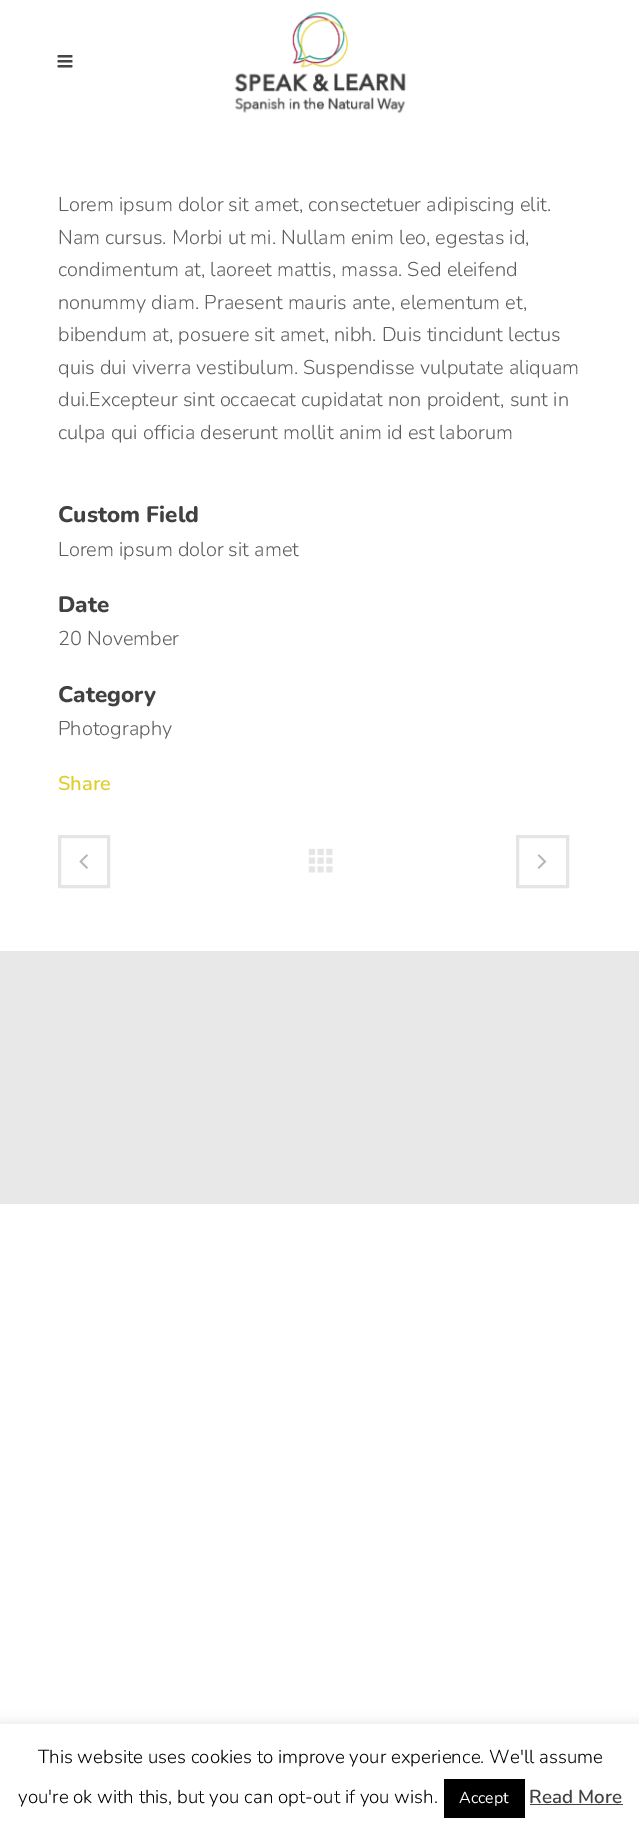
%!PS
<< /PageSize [639 1832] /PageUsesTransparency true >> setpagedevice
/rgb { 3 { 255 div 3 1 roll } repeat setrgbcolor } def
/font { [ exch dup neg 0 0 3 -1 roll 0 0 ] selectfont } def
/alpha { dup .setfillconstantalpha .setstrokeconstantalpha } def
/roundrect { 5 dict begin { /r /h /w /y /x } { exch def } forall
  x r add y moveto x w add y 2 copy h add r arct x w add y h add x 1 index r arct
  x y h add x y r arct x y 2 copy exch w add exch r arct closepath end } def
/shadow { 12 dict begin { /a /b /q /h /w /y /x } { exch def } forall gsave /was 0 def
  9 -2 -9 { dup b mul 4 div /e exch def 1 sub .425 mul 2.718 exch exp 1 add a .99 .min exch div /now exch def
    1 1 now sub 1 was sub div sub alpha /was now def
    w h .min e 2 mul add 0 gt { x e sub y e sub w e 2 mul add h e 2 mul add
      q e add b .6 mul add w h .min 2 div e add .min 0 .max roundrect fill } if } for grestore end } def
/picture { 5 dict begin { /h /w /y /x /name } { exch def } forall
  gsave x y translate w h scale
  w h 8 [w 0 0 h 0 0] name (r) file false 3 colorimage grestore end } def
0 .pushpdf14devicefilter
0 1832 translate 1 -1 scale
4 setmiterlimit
255 255 255 rgb
0 0 639 1832 rectfill
(img/1.rgb) 57 55 16 13 picture
(img/2.rgb) 234 12 172 101 picture
229 229 229 rgb
3 setlinewidth
59.5 836.5 49 50 rectstroke
(img/3.rgb) 79 854 9 15 picture
(img/4.rgb) 308 848 25 25 picture
517.5 836.5 50 50 rectstroke
(img/5.rgb) 537 854 10 15 picture
232 232 232 rgb
0 951 639 253 rectfill
172 171 171 rgb
0 1723 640 108 0 6 0.3 shadow
[
  [0 1724 639 108 255 255 255]
  [444 1779 81 39 0 0 0]
  [530 1804 93 1 68 68 68]
] { aload pop rgb rectfill } forall
/Nunito-Light 20 font
93 93 93 rgb
[
  [(Lorem ipsum dolor sit amet, consectetuer adipiscing elit.) 58 211]
  [(Nam cursus. Morbi ut mi. Nullam enim leo, egestas id,) 58 244]
  [(condimentum at, laoreet mattis, massa. Sed eleifend) 58 276]
  [(nonummy diam. Praesent mauris ante, elementum et,) 58 309]
  [(bibendum at, posuere sit amet, nibh. Duis tincidunt lectus) 58 341]
  [(quis dui viverra vestibulum. Suspendisse vulputate aliquam) 58 374]
  [(dui.Excepteur sint occaecat cupidatat non proident, sunt in) 58 406]
  [(culpa qui officia deserunt mollit anim id est laborum) 58 439]
] { aload pop moveto show } forall
/Nunito-ExtraBold 22.5 font
65 65 65 rgb
58 522 moveto (Custom Field) show
/Nunito-Light 20 font
93 93 93 rgb
58 556 moveto (Lorem ipsum dolor sit amet) show
/Nunito-ExtraBold 22.5 font
65 65 65 rgb
58 612 moveto (Date) show
/Nunito-Light 20 font
93 93 93 rgb
58 645 moveto (20 November) show
/Nunito-ExtraBold 22.5 font
65 65 65 rgb
58 702 moveto (Category) show
/Nunito-Light 20 font
93 93 93 rgb
58 735 moveto (Photography) show
/Nunito-SemiBold 20 font
225 206 45 rgb
58 790 moveto (Share) show
/Nunito-Light 18.75 font
0 0 0 rgb
38 1763 moveto (This website uses cookies to improve your experience. We'll assume) show
18 1803 moveto (you're ok with this, but you can opt-out if you wish.) show
/Nunito-Regular 16 font
255 255 255 rgb
459 1803 moveto (Accept) show
/Nunito-SemiBold 18.75 font
65 65 65 rgb
529 1803 moveto (Read More) show
.poppdf14devicefilter showpage
